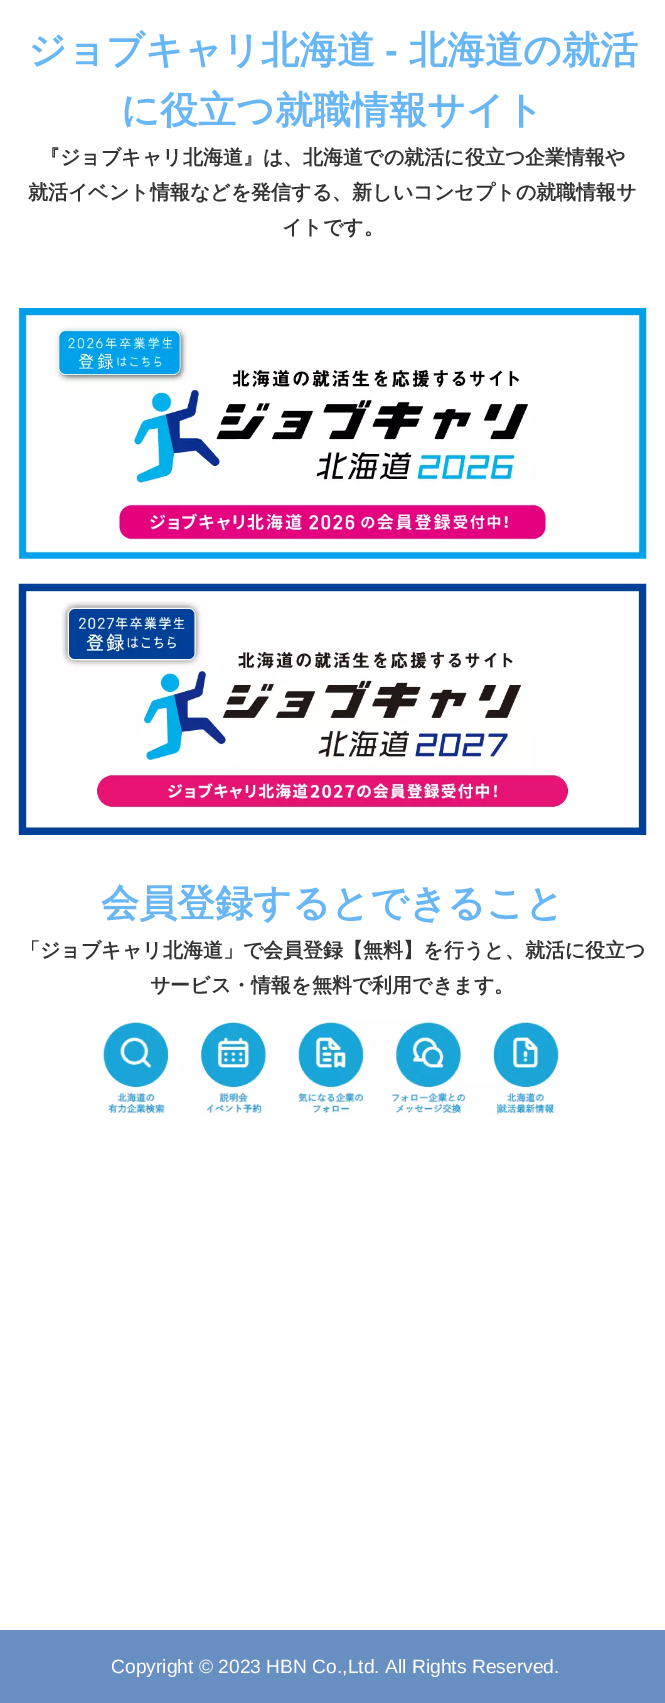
%!PS
<< /PageSize [665 1703] >> setpagedevice
/rgb { 3 { 255 div 3 1 roll } repeat setrgbcolor } def
/font { [ exch dup neg 0 0 3 -1 roll 0 0 ] selectfont } def
/picture { 5 dict begin { /h /w /y /x /name } { exch def } forall
  gsave x y translate w h scale
  w h 8 [w 0 0 h 0 0] name (r) file false 3 colorimage grestore end } def
0 1703 translate 1 -1 scale
4 setmiterlimit
255 255 255 rgb
0 0 665 1703 rectfill
(img/1.rgb) 18 308 629 251 picture
(img/2.rgb) 18 583 629 252 picture
(img/3.rgb) 102 1019 459 97 picture
104 143 194 rgb
0 1630 665 73 rectfill
/WenQuanYiZenHei-Bold 38 font
105 182 244 rgb
28 63 moveto (ジョブキャリ北海道) show
/LiberationSans-Bold 38 font
385 63 moveto (-) show
/WenQuanYiZenHei-Bold 38 font
409 63 moveto (北海道の就活) show
121 123 moveto (に役立つ就職情報サイト) show
/WenQuanYiZenHei-Bold 20 font
51 51 51 rgb
[
  [(『ジョブキャリ北海道』は、北海道での就活に役立つ企業情報や) 40 164]
  [(就活イベント情報などを発信する、新しいコンセプトの就職情報サ) 28 199]
  [(イトです。) 282 234]
] { aload pop moveto show } forall
/WenQuanYiZenHei-Bold 38 font
105 182 244 rgb
101 916 moveto (会員登録するとできること) show
/WenQuanYiZenHei-Bold 20 font
51 51 51 rgb
20 957 moveto (「ジョブキャリ北海道」で会員登録【無料】を行うと、就活に役立つ) show
150 992 moveto (サービス・情報を無料で利用できます。) show
/LiberationSans-Regular 19.25 font
255 255 255 rgb
111 1673 moveto (Copyright © 2023 HBN Co.,Ltd. All Rights Reserved.) show
showpage
